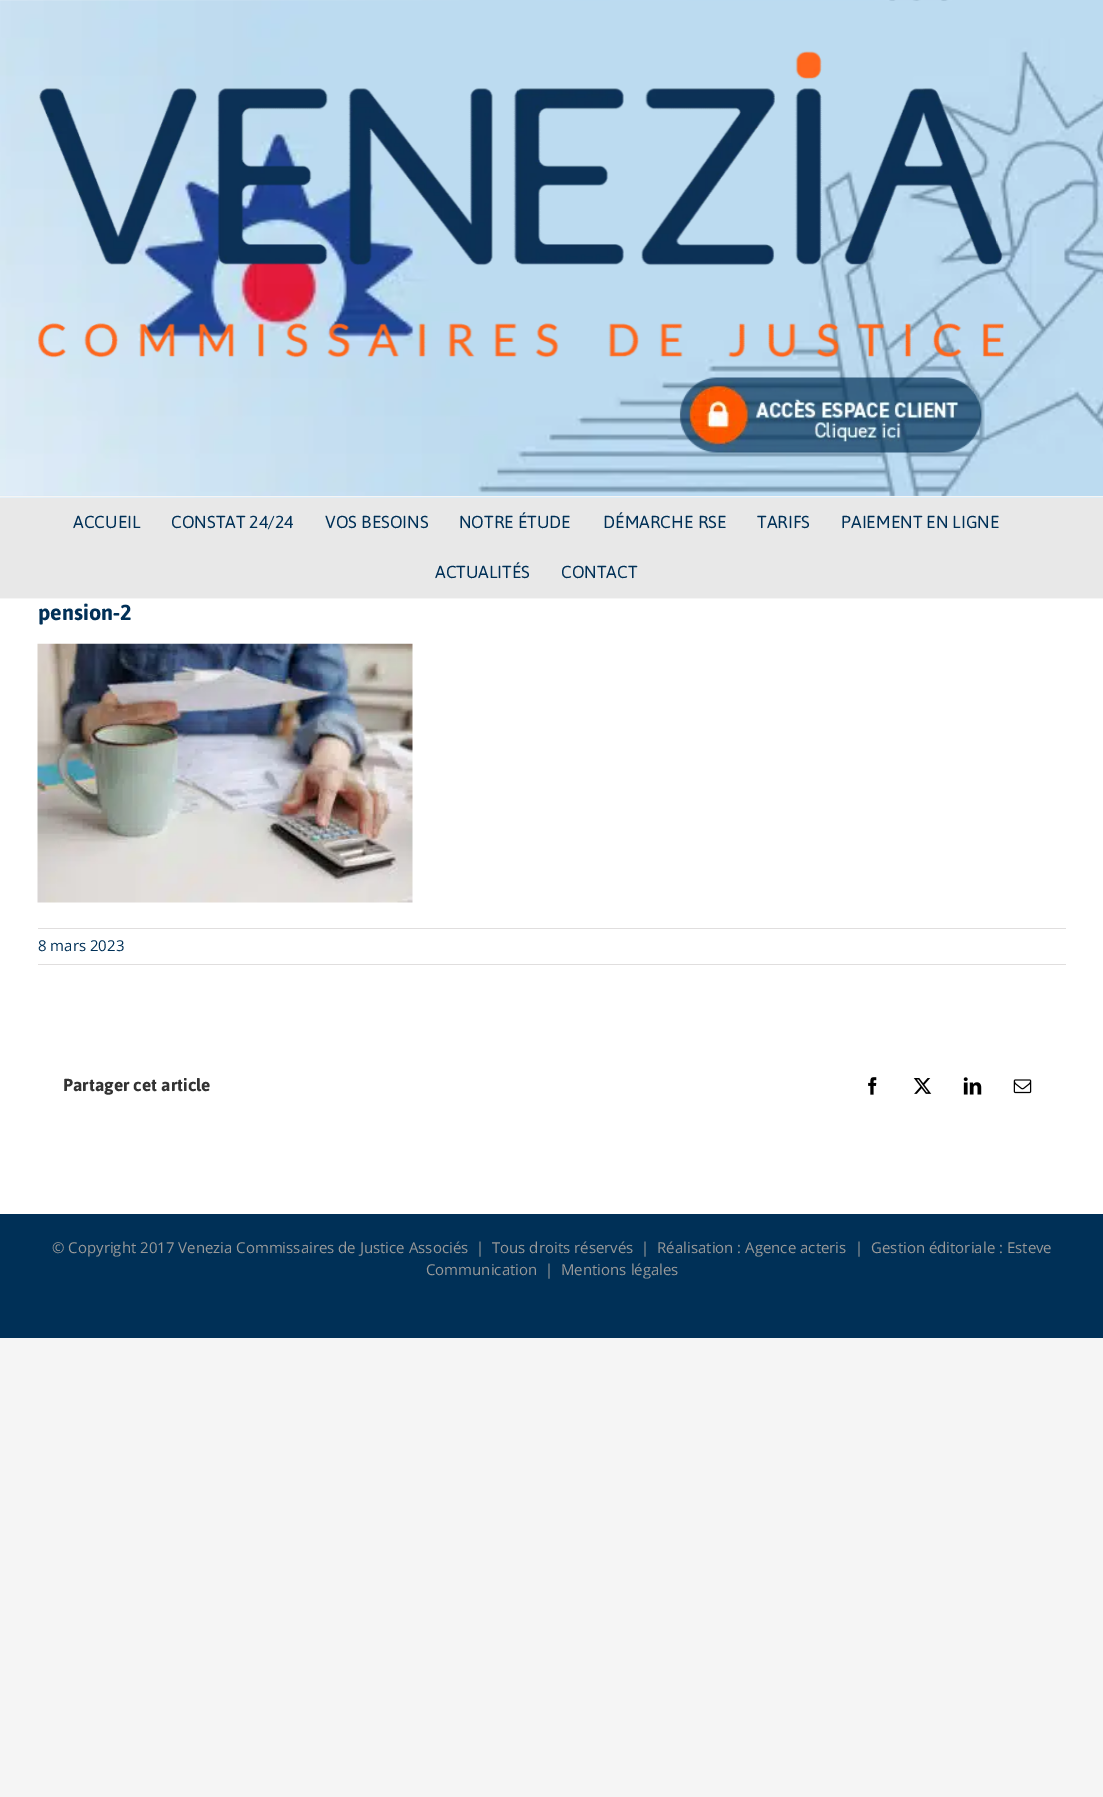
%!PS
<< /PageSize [1103 1797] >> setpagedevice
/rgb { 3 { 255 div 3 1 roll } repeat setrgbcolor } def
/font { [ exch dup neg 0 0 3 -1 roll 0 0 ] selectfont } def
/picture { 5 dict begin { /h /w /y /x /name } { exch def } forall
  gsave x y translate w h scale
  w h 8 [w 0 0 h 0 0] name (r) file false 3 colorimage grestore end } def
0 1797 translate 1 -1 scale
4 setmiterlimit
245 245 245 rgb
0 0 1103 1797 rectfill
255 255 255 rgb
0 497 1103 1 rectfill
(img/1.rgb) 0 0 1103 498 picture
245 245 245 rgb
0 496 1103 1 rectfill
(img/2.rgb) 38 51 966 307 picture
(img/3.rgb) 679 377 303 76 picture
232 232 232 rgb
0 498 1103 100 rectfill
255 255 255 rgb
0 599 1103 615 rectfill
(img/4.rgb) 37 643 376 260 picture
224 222 222 rgb
38 928 1028 1 rectfill
38 964 1028 1 rectfill
(img/5.rgb) 868 1077 9 18 picture
(img/6.rgb) 913 1078 19 16 picture
(img/7.rgb) 963 1077 19 18 picture
(img/8.rgb) 1013 1079 19 15 picture
0 48 87 rgb
0 1214 1103 124 rectfill
/Jaldi-Regular 20 font
[
  [(ACCUEIL) 73 528]
  [(CONSTAT 24/24) 171 528]
  [(VOS BESOINS) 325 528]
  [(NOTRE ÉTUDE) 459 528]
  [(DÉMARCHE RSE) 603 528]
  [(TARIFS) 757 528]
  [(PAIEMENT EN LIGNE) 841 528]
  [(ACTUALITÉS) 435 578]
  [(CONTACT) 561 578]
] { aload pop moveto show } forall
/Jaldi-Bold 25 font
38 620 moveto (pension-2) show
/OpenSans-Regular 15 font
38 951 moveto (8 mars 2023) show
/Jaldi-Bold 20 font
51 51 51 rgb
63 1091 moveto (Partager cet article) show
/OpenSans-Regular 15 font
153 153 153 rgb
[
  [(© Copyright 2017 Venezia Commissaires de Justice Associés  |  Tous droits réservés  |  Réalisation : Agence acteris) 52 1253]
  [(|  Gestion éditoriale : Esteve) 855 1253]
  [(Communication) 426 1275]
  [(|) 545 1275]
  [(Mentions légales) 561 1275]
] { aload pop moveto show } forall
showpage
